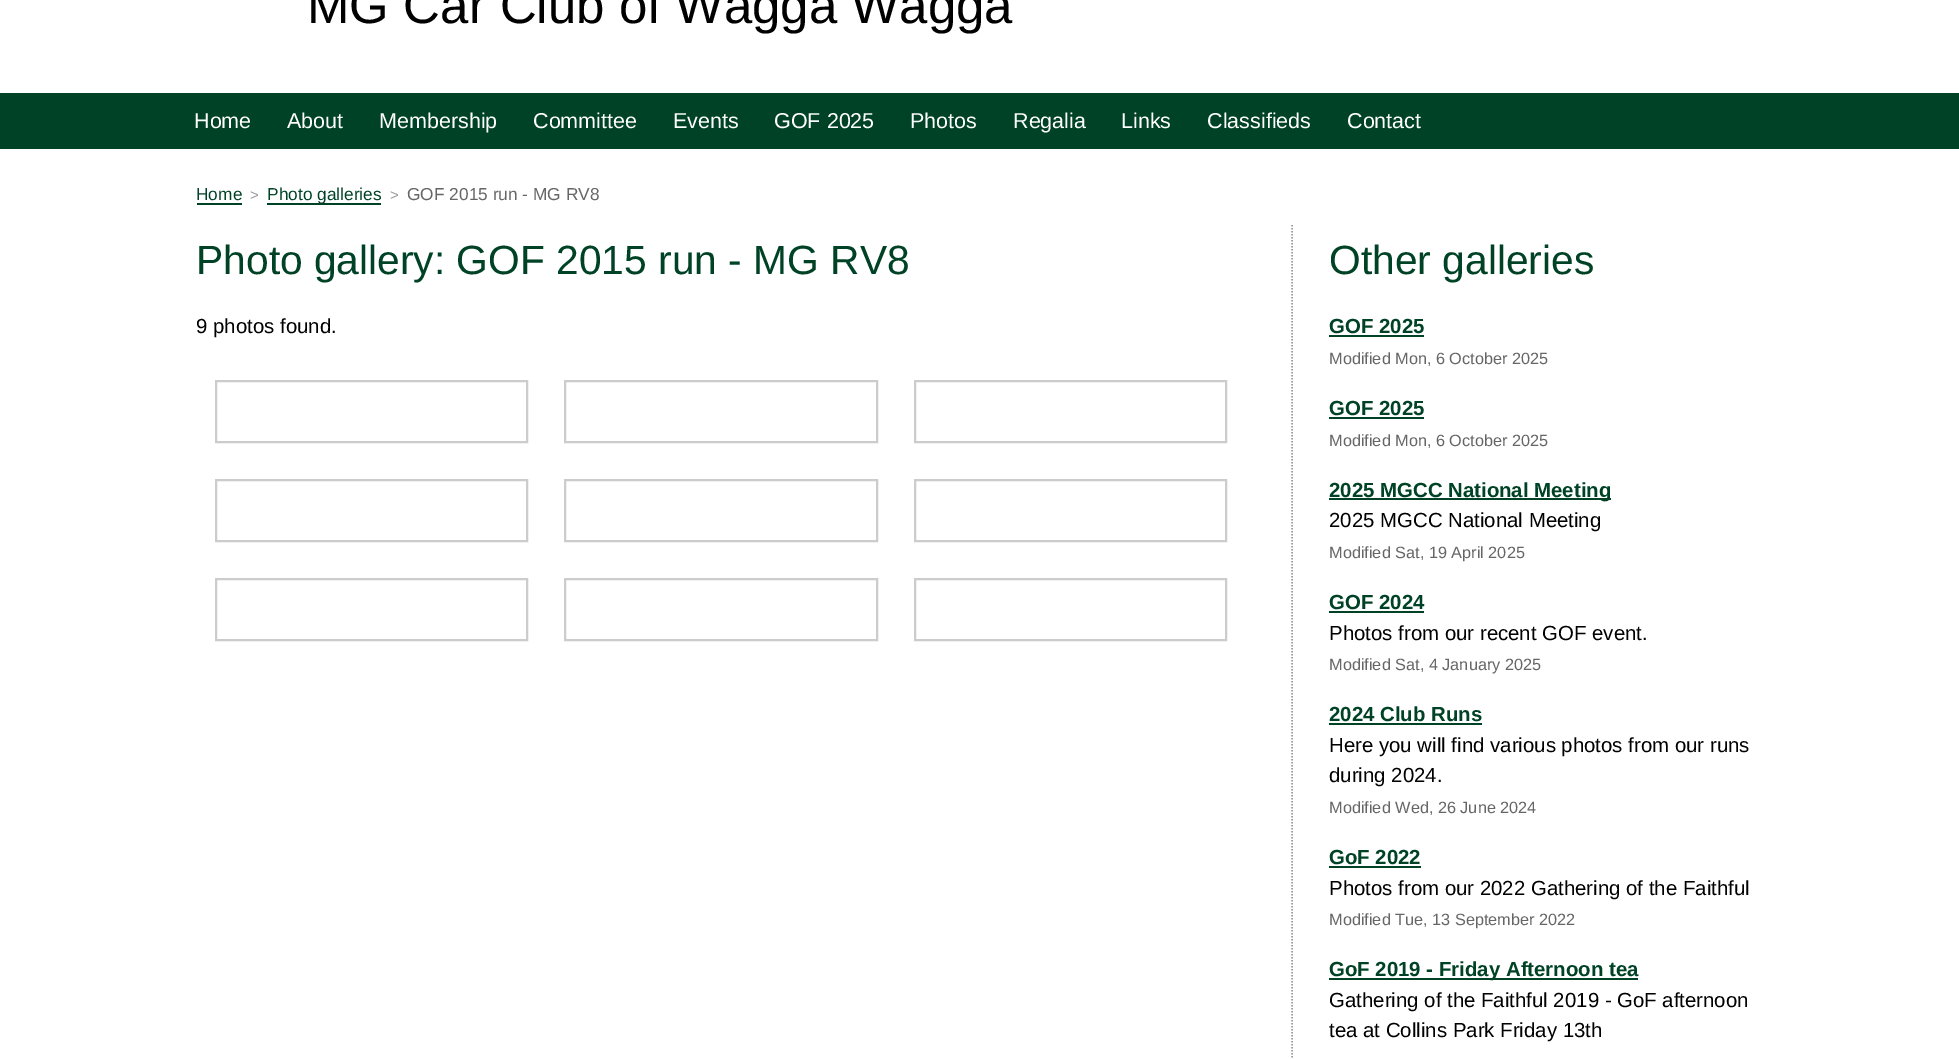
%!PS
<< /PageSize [1959 1059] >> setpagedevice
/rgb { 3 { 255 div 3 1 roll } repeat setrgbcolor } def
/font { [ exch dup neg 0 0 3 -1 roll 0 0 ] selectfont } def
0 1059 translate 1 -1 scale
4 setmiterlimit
255 255 255 rgb
0 0 1959 1059 rectfill
[
  [0 93 1959 56 0 66 37]
  [197 203 45 2 0 66 37]
  [267 203 114 2 0 66 37]
] { aload pop rgb rectfill } forall
153 153 153 rgb
1.5 setlinewidth
[1.5 1.5] 0 setdash
1292 225 moveto 1292 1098 lineto stroke
204 204 204 rgb
2 setlinewidth
[] 0 setdash
216 381 311 61 rectstroke
565 381 312 61 rectstroke
915 381 311 61 rectstroke
216 480 311 61 rectstroke
565 480 312 61 rectstroke
915 480 311 61 rectstroke
216 579 311 61 rectstroke
565 579 312 61 rectstroke
915 579 311 61 rectstroke
[
  [1329 335 95 2 0 66 37]
  [1329 417 95 2 0 66 37]
  [1329 498 282 2 0 66 37]
  [1329 611 95 2 0 66 37]
  [1329 723 153 2 0 66 37]
  [1329 866 92 2 0 66 37]
  [1329 978 309 2 0 66 37]
] { aload pop rgb rectfill } forall
/LiberationSans-Regular 51 font
0 0 0 rgb
307 23 moveto (MG Car Club of Wagga Wagga) show
/LiberationSans-Regular 21.5 font
255 255 255 rgb
[
  [(Home) 194 128]
  [(About) 287 128]
  [(Membership) 379 128]
  [(Committee) 533 128]
  [(Events) 673 128]
  [(GOF 2025) 774 128]
  [(Photos) 910 128]
  [(Regalia) 1013 128]
  [(Links) 1121 128]
  [(Classifieds) 1207 128]
  [(Contact) 1347 128]
] { aload pop moveto show } forall
/LiberationSans-Regular 17.3 font
0 66 37 rgb
196 200 moveto (Home) show
/LiberationSans-Regular 15 font
153 153 153 rgb
250 200 moveto (>) show
/LiberationSans-Regular 17.3 font
0 66 37 rgb
267 200 moveto (Photo galleries) show
/LiberationSans-Regular 15 font
153 153 153 rgb
390 200 moveto (>) show
/LiberationSans-Regular 17.3 font
102 102 102 rgb
407 200 moveto (GOF 2015 run - MG RV8) show
/LiberationSans-Regular 40.75 font
0 66 37 rgb
196 274 moveto (Photo gallery: GOF 2015 run - MG RV8) show
/LiberationSans-Regular 20.4 font
0 0 0 rgb
196 333 moveto (9 photos found.) show
/LiberationSans-Regular 40.75 font
0 66 37 rgb
1329 274 moveto (Other galleries) show
/LiberationSans-Bold 20.4 font
1329 333 moveto (GOF 2025) show
/LiberationSans-Regular 16.3 font
102 102 102 rgb
1329 364 moveto (Modified Mon, 6 October 2025) show
/LiberationSans-Bold 20.4 font
0 66 37 rgb
1329 415 moveto (GOF 2025) show
/LiberationSans-Regular 16.3 font
102 102 102 rgb
1329 446 moveto (Modified Mon, 6 October 2025) show
/LiberationSans-Bold 20.4 font
0 66 37 rgb
1329 497 moveto (2025 MGCC National Meeting) show
/LiberationSans-Regular 20.4 font
0 0 0 rgb
1329 527 moveto (2025 MGCC National Meeting) show
/LiberationSans-Regular 16.3 font
102 102 102 rgb
1329 558 moveto (Modified Sat, 19 April 2025) show
/LiberationSans-Bold 20.4 font
0 66 37 rgb
1329 609 moveto (GOF 2024) show
/LiberationSans-Regular 20.4 font
0 0 0 rgb
1329 640 moveto (Photos from our recent GOF event.) show
/LiberationSans-Regular 16.3 font
102 102 102 rgb
1329 670 moveto (Modified Sat, 4 January 2025) show
/LiberationSans-Bold 20.4 font
0 66 37 rgb
1329 721 moveto (2024 Club Runs) show
/LiberationSans-Regular 20.4 font
0 0 0 rgb
1329 752 moveto (Here you will find various photos from our runs) show
1329 782 moveto (during 2024.) show
/LiberationSans-Regular 16.3 font
102 102 102 rgb
1329 813 moveto (Modified Wed, 26 June 2024) show
/LiberationSans-Bold 20.4 font
0 66 37 rgb
1329 864 moveto (GoF 2022) show
/LiberationSans-Regular 20.4 font
0 0 0 rgb
1329 895 moveto (Photos from our 2022 Gathering of the Faithful) show
/LiberationSans-Regular 16.3 font
102 102 102 rgb
1329 925 moveto (Modified Tue, 13 September 2022) show
/LiberationSans-Bold 20.4 font
0 66 37 rgb
1329 976 moveto (GoF 2019 - Friday Afternoon tea) show
/LiberationSans-Regular 20.4 font
0 0 0 rgb
1329 1007 moveto (Gathering of the Faithful 2019 - GoF afternoon) show
1329 1037 moveto (tea at Collins Park Friday 13th) show
showpage
